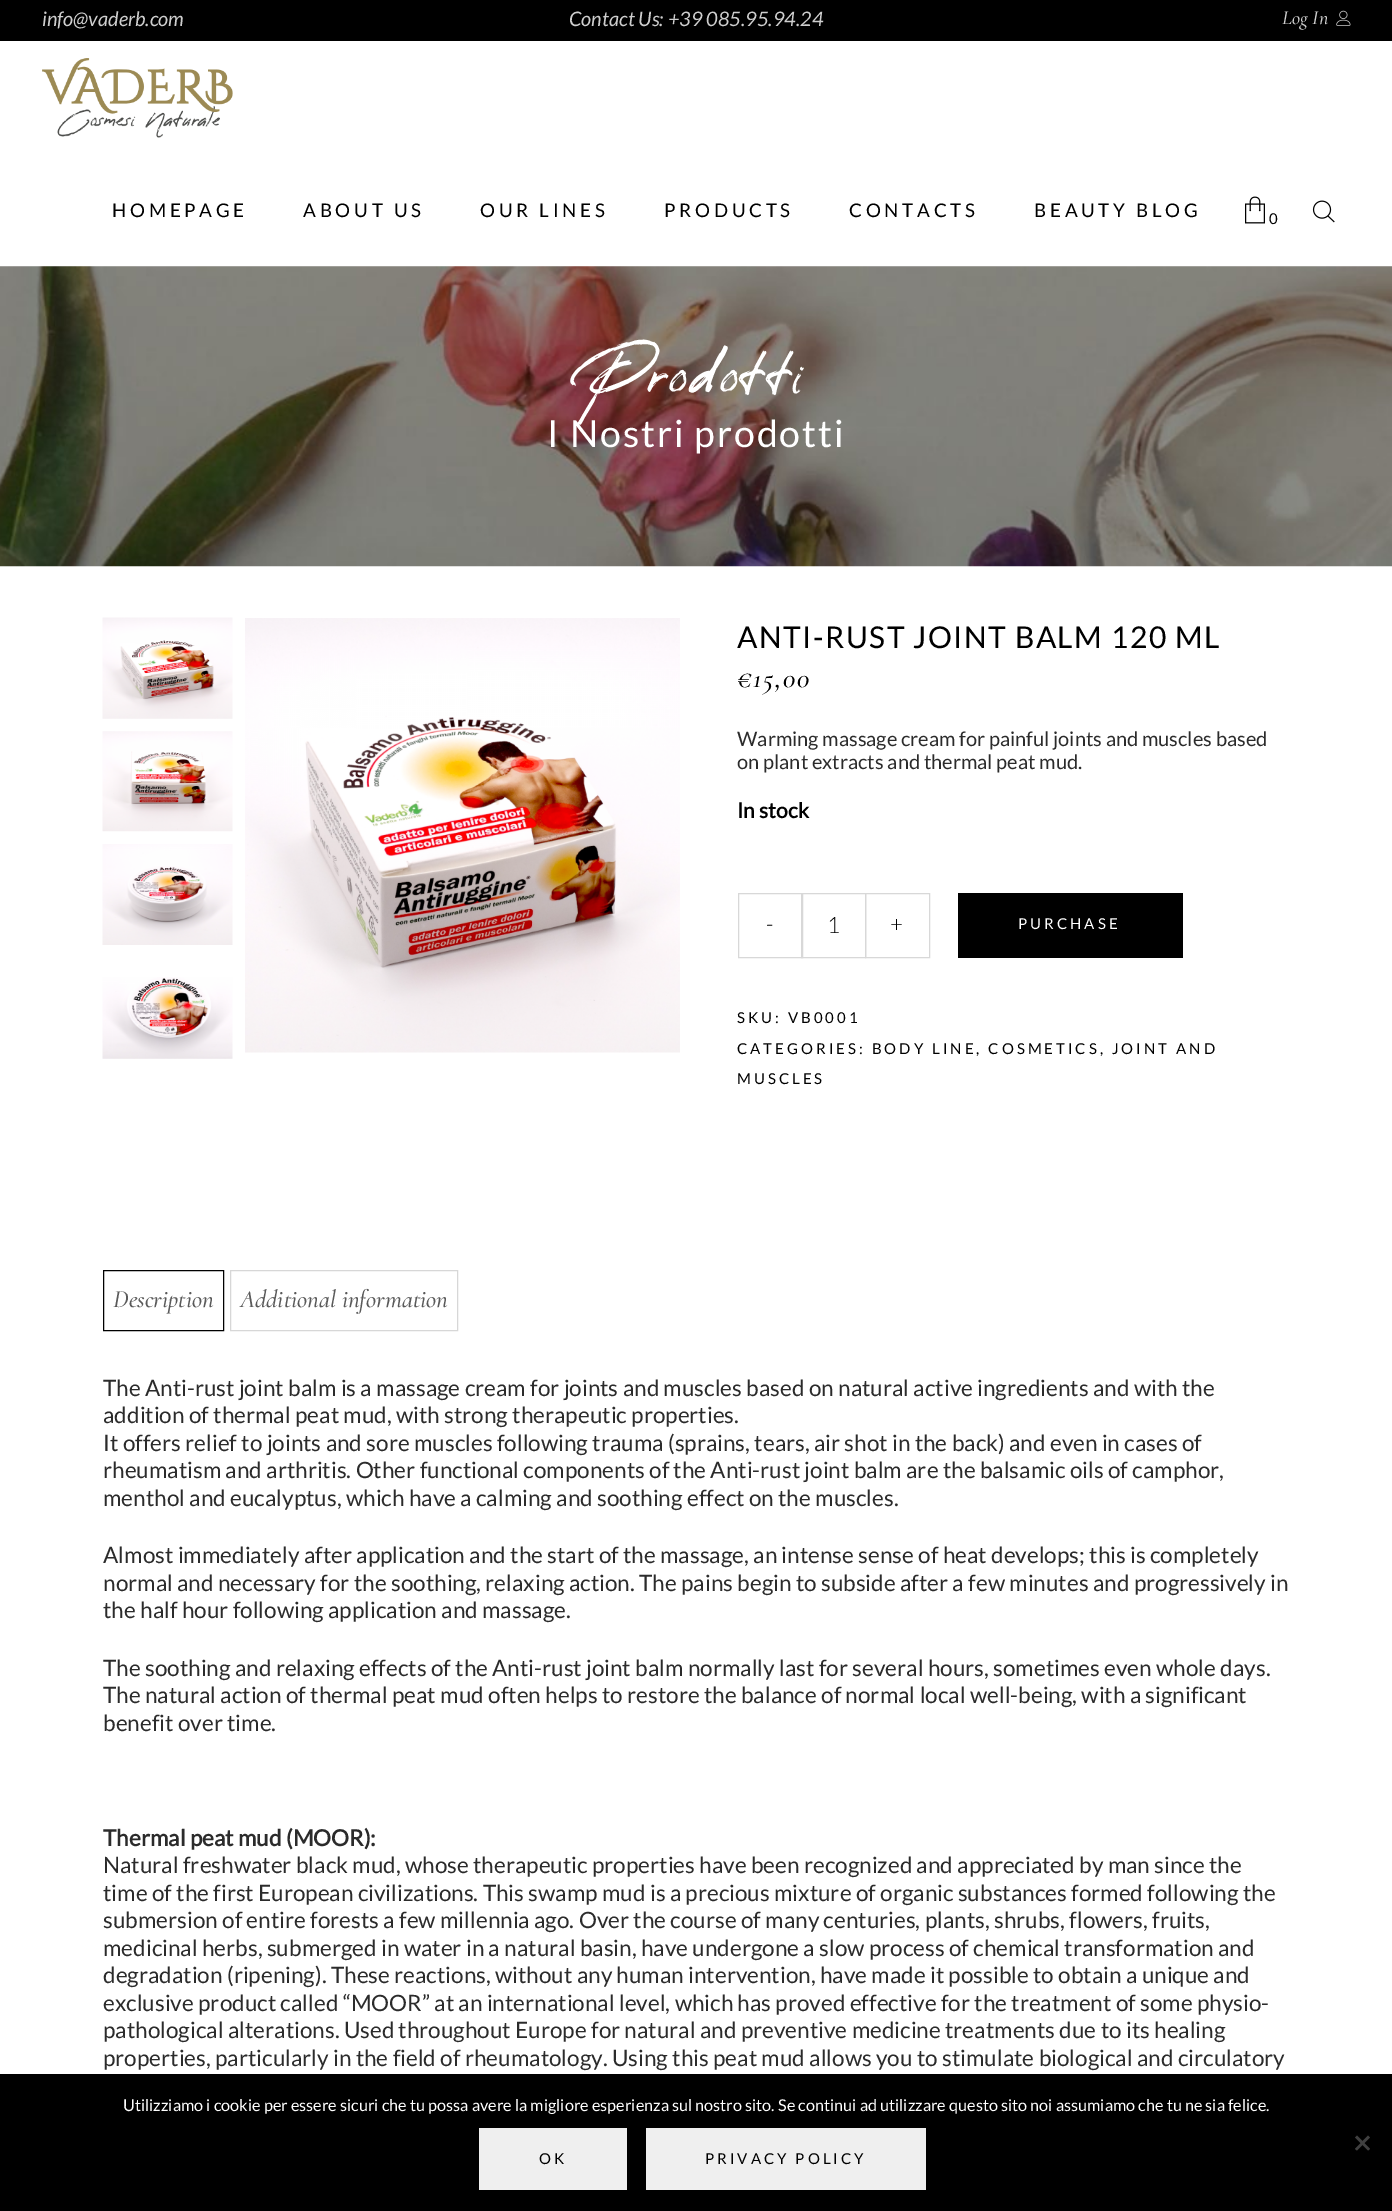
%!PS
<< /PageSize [1392 2211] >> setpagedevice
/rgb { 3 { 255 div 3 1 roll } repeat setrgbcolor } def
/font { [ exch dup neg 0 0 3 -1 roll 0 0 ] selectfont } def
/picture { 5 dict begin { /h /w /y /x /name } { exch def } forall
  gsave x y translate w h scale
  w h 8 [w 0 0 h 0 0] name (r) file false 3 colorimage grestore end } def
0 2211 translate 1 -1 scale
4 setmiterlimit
255 255 255 rgb
0 0 1392 2211 rectfill
0 0 0 rgb
0 0 1392 41 rectfill
(img/1.rgb) 1336 10 15 16 picture
(img/2.rgb) 42 58 191 80 picture
(img/3.rgb) 1245 196 20 28 picture
(img/4.rgb) 1312 200 23 23 picture
(img/5.rgb) 0 266 1392 301 picture
(img/6.rgb) 102 617 131 102 picture
(img/7.rgb) 245 618 435 435 picture
(img/8.rgb) 102 731 131 101 picture
(img/9.rgb) 102 844 131 101 picture
(img/10.rgb) 102 977 131 82 picture
216 216 216 rgb
738.5 893.5 64 64 rectstroke
801.5 893.5 64 64 rectstroke
865.5 893.5 64 64 rectstroke
0 0 0 rgb
958 893 225 65 rectfill
103.5 1270.5 120 60 rectstroke
215 215 215 rgb
230.5 1270.5 227 60 rectstroke
0 0 0 rgb
0 2074 1392 137 rectfill
64 64 64 rgb
1368 2135.5 moveto 1370 2137.5 lineto 1357 2150.5 lineto 1355 2149 lineto closepath fill
1355 2137.5 moveto 1357 2135.5 lineto 1370 2149 lineto 1368 2150.5 lineto closepath fill
239 239 239 rgb
479 2128 148 62 rectfill
646 2128 280 62 rectfill
/Lato-Italic 20 font
206 206 206 rgb
42 26 moveto (info@vaderb.com) show
569 26 moveto (Contact Us: +39 085.95.94.24) show
/Cormorant-MediumItalic 20 font
1282 24 moveto (Log In) show
/Lato-Regular 18.75 font
0 0 0 rgb
112 217 moveto 3.75 0 (HOMEPAGE) ashow
303 217 moveto 3.75 0 (ABOUT US) ashow
480 217 moveto 3.75 0 (OUR LINES) ashow
664 217 moveto 3.75 0 (PRODUCTS) ashow
849 217 moveto 3.75 0 (CONTACTS) ashow
1034 217 moveto 3.75 0 (BEAUTY BLOG) ashow
/Lato-Regular 15 font
1269 224 moveto (0) show
/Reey-Regular 50 font
255 255 255 rgb
584 394 moveto 2.5 0 (Prodotti) ashow
/Lato-Regular 37.5 font
547 447 moveto 1.9 0 (I Nostri prodotti) ashow
/Lato-Regular 30 font
0 0 0 rgb
737 648 moveto 1.5 0 (ANTI-RUST JOINT BALM 120 ML) ashow
/Cormorant-MediumItalic 28 font
737 687 moveto 1.5 0 (€15,00) ashow
/Lato-Regular 20 font
43 43 43 rgb
737 746 moveto (Warming massage cream for painful joints and muscles based) show
737 769 moveto (on plant extracts and thermal peat mud.) show
/Lato-Bold 21 font
0 0 0 rgb
737 818 moveto (In stock) show
/Lato-Light 22.5 font
[
  [(-) 766 932]
  [(1) 827 933]
  [(+) 890 932]
] { aload pop moveto show } forall
/Lato-Regular 15 font
255 255 255 rgb
1018 929 moveto 3 0 (PURCHASE) ashow
0 0 0 rgb
737 1023 moveto 3 0 (SKU: VB0001) ashow
737 1054 moveto 3 0 (CATEGORIES: BODY LINE, COSMETICS, JOINT AND) ashow
737 1084 moveto 3 0 (MUSCLES) ashow
/Cormorant-MediumItalic 25 font
90 90 90 rgb
113 1307 moveto (Description) show
240 1307 moveto (Additional information) show
/Lato-Regular 22.5 font
43 43 43 rgb
[
  [(The Anti-rust joint balm is a massage cream for joints and muscles based on natural active ingredients and with the) 103 1396]
  [(addition of thermal peat mud, with strong therapeutic properties.) 103 1423]
  [(It offers relief to joints and sore muscles following trauma \(sprains, tears, air shot in the back\) and even in cases of) 103 1451]
  [(rheumatism and arthritis. Other functional components of the Anti-rust joint balm are the balsamic oils of camphor,) 103 1478]
  [(menthol and eucalyptus, which have a calming and soothing effect on the muscles.) 103 1506]
  [(Almost immediately after application and the start of the massage, an intense sense of heat develops; this is completely) 103 1563]
  [(normal and necessary for the soothing, relaxing action. The pains begin to subside after a few minutes and progressively in) 103 1591]
  [(the half hour following application and massage.) 103 1618]
  [(The soothing and relaxing effects of the Anti-rust joint balm normally last for several hours, sometimes even whole days.) 103 1676]
  [(The natural action of thermal peat mud often helps to restore the balance of normal local well-being, with a significant) 103 1703]
  [(benefit over time.) 103 1731]
] { aload pop moveto show } forall
/Lato-Bold 22.5 font
103 1846 moveto (Thermal peat mud \(MOOR\):) show
/Lato-Regular 22.5 font
[
  [(Natural freshwater black mud, whose therapeutic properties have been recognized and appreciated by man since the) 103 1873]
  [(time of the first European civilizations. This swamp mud is a precious mixture of organic substances formed following the) 103 1901]
  [(submersion of entire forests a few millennia ago. Over the course of many centuries, plants, shrubs, flowers, fruits,) 103 1928]
  [(medicinal herbs, submerged in water in a natural basin, have undergone a slow process of chemical transformation and) 103 1956]
  [(degradation \(ripening\). These reactions, without any human intervention, have made it possible to obtain a unique and) 103 1983]
  [(exclusive product called “MOOR” at an international level, which has proved effective for the treatment of some physio-) 103 2011]
  [(pathological alterations. Used throughout Europe for natural and preventive medicine treatments due to its healing) 103 2038]
  [(properties, particularly in the field of rheumatology. Using this peat mud allows you to stimulate biological and circulatory) 103 2066]
] { aload pop moveto show } forall
/Lato-Regular 16.25 font
255 255 255 rgb
123 2111 moveto (Utilizziamo i cookie per essere sicuri che tu possa avere la migliore esperienza sul nostro sito. Se continui ad utilizzare questo sito noi assumiamo che tu ne sia felice.) show
/Lato-Regular 15 font
0 0 0 rgb
539 2164 moveto 3 0 (OK) ashow
705 2164 moveto 3 0 (PRIVACY POLICY) ashow
showpage
